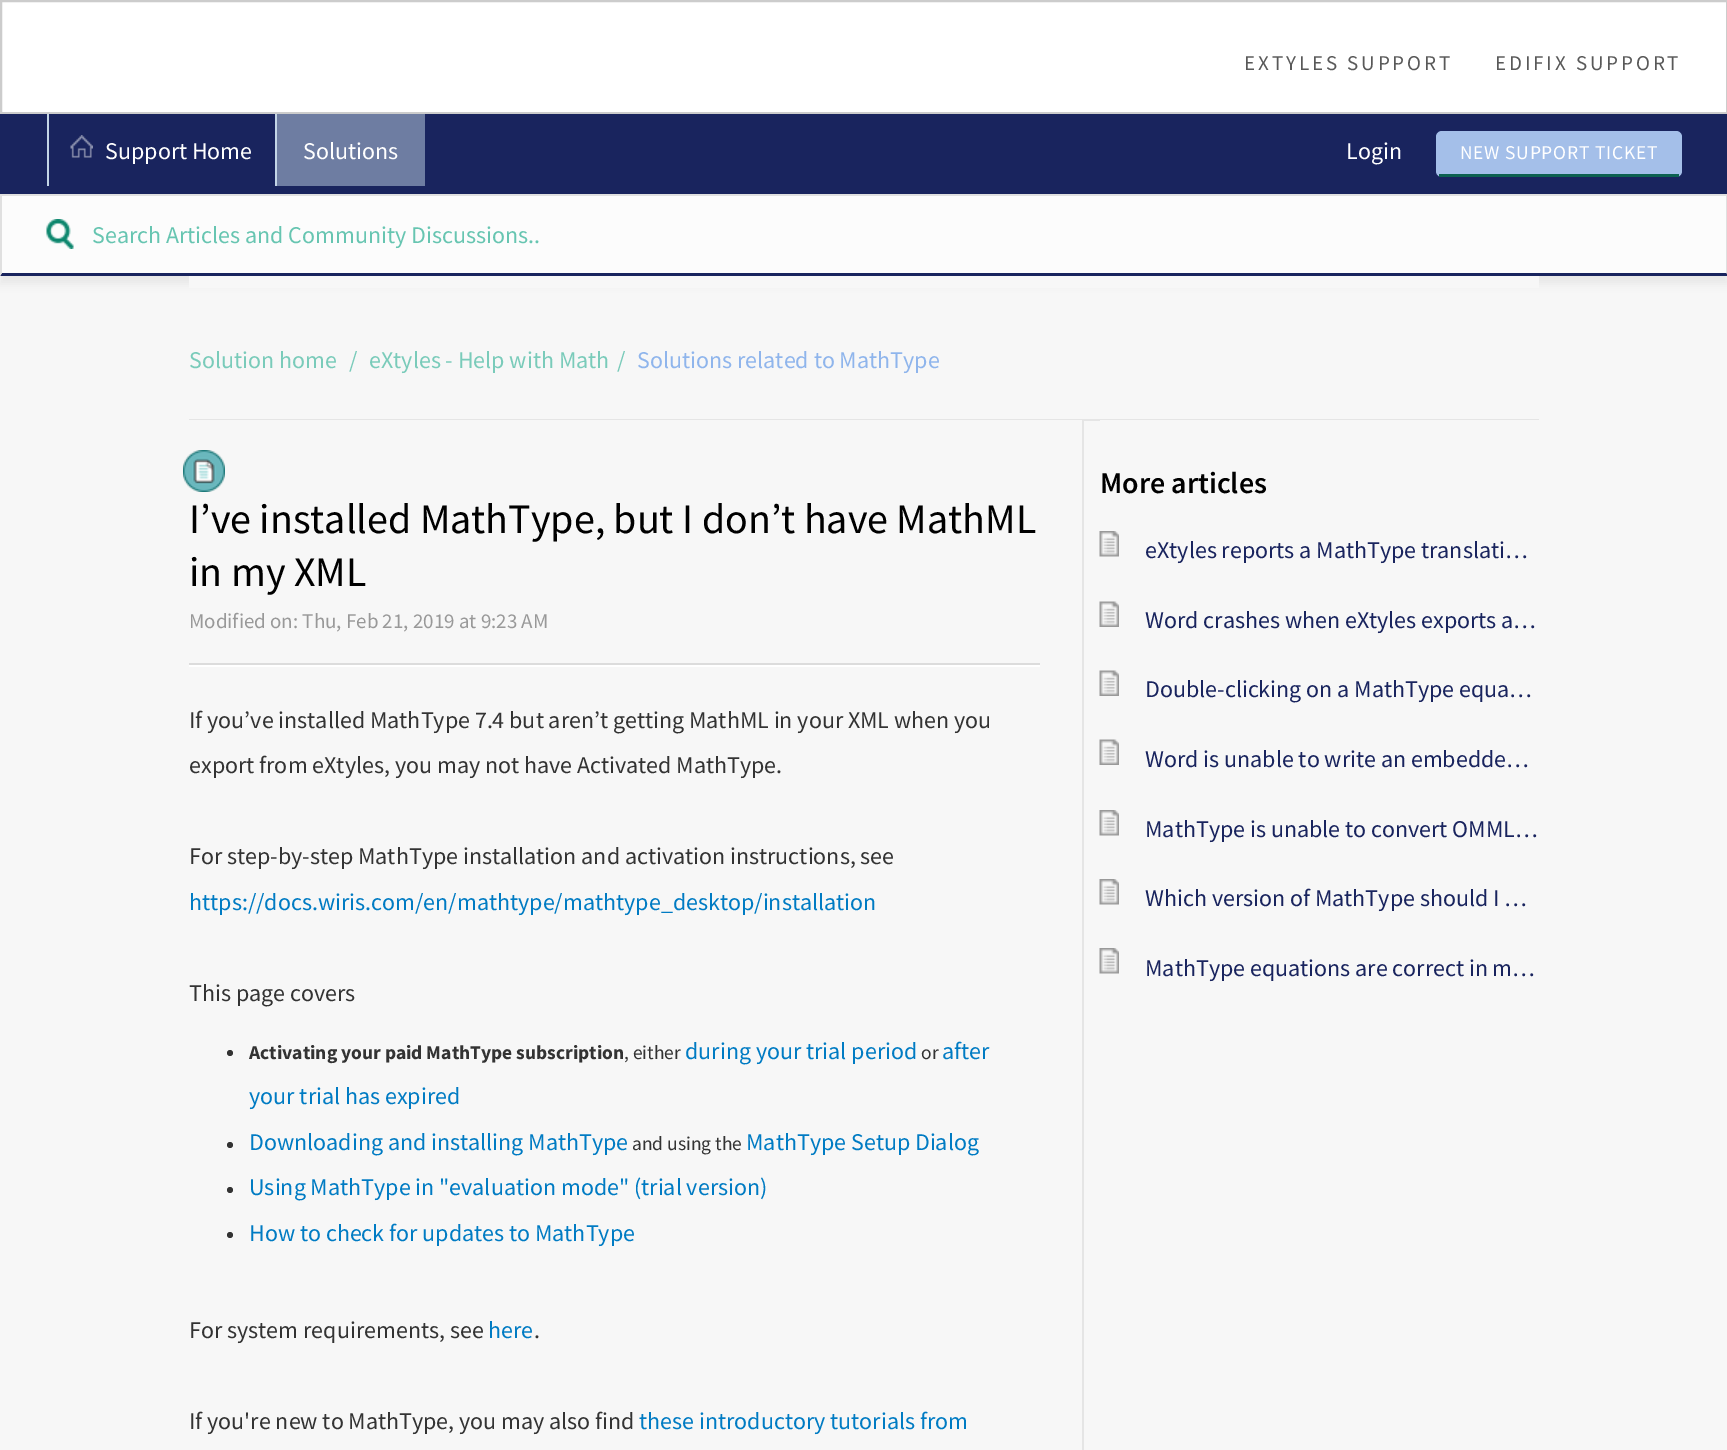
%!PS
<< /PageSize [1727 1450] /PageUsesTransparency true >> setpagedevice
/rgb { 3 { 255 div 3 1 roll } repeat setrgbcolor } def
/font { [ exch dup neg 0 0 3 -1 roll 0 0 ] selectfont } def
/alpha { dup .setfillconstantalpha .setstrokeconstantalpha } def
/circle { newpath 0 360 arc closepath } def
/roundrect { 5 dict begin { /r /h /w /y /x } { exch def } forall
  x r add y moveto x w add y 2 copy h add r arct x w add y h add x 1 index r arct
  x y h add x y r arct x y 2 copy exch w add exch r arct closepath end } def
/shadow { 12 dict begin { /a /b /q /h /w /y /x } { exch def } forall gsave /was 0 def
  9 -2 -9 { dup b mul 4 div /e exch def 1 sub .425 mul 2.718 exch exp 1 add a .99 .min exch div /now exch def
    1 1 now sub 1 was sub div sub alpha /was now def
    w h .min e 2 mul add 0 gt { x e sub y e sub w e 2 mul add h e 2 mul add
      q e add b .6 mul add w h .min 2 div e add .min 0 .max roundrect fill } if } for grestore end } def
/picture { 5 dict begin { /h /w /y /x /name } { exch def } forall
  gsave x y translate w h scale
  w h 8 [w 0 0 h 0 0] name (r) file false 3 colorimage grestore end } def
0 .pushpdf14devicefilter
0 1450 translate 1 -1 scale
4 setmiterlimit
247 247 247 rgb
0 0 1727 1450 rectfill
255 255 255 rgb
1 1 moveto 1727 1 lineto 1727 113 lineto 1 113 lineto closepath gsave fill grestore
204 204 204 rgb
2 setlinewidth
stroke
100 100 100 rgb
0 201 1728 83 0 4 0.1 shadow
25 36 94 rgb
0 114 1727 80 rectfill
195 213 230 rgb
47 114 2 72 rectfill
(img/1.rgb) 70 135 23 23 picture
110 125 162 rgb
277 114 148 72 rectfill
195 213 230 rgb
275 114 2 72 rectfill
164 191 233 rgb
1436 131 246 46 6 roundrect fill
[
  [1439 174 240 3 13 97 81]
  [2 196 1724 77 252 252 252]
  [0 194 1727 2 224 224 224]
] { aload pop rgb rectfill } forall
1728 194 moveto 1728 276 lineto 1726 273 lineto 1726 195 lineto closepath fill
25 36 94 rgb
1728 276 moveto 0 276 lineto 2 273 lineto 1726 273 lineto closepath fill
224 224 224 rgb
0 276 moveto 0 194 lineto 2 195 lineto 2 273 lineto closepath fill
(img/2.rgb) 46 219 28 30 picture
[
  [189 276 1350 12 247 247 247]
  [189 419 1350 2 229 229 229]
  [189 420 893 1 247 247 247]
  [1082 420 2 1030 229 229 229]
] { aload pop rgb rectfill } forall
(img/3.rgb) 183 450 42 42 picture
220 220 220 rgb
189 663 851 2 rectfill
255 255 255 rgb
189 665 851 2 rectfill
51 51 51 rgb
230 1053 3 circle fill
230 1145 3 circle fill
230 1190 3 circle fill
230 1235 3 circle fill
247 247 247 rgb
1100 420 439 1 rectfill
(img/4.rgb) 1099 531 20 26 picture
(img/5.rgb) 1099 601 20 26 picture
(img/5.rgb) 1099 670 20 26 picture
(img/5.rgb) 1099 739 20 26 picture
(img/4.rgb) 1099 810 20 26 picture
(img/4.rgb) 1099 879 20 26 picture
(img/4.rgb) 1099 948 20 26 picture
/SourceSansPro-Regular 21 font
89 89 89 rgb
1244 70 moveto 2.9 0 (EXTYLES SUPPORT) ashow
1495 70 moveto 2.9 0 (EDIFIX SUPPORT) ashow
/SourceSansPro-Regular 24 font
255 255 255 rgb
[
  [(Support Home) 105 159]
  [(Solutions) 303 159]
  [(Login) 1346 159]
] { aload pop moveto show } forall
/SourceSansPro-Regular 19.5 font
1460 159 moveto 0.75 0 (NEW SUPPORT TICKET) ashow
/SourceSansPro-Regular 24 font
103 197 177 rgb
92 243 moveto (Search Articles and Community Discussions..) show
122 203 186 rgb
[
  [(Solution home) 189 368]
  [(/) 349 368]
  [(eXtyles - Help with Math) 369 368]
  [(/) 617 368]
] { aload pop moveto show } forall
143 181 236 rgb
637 368 moveto (Solutions related to MathType) show
/SourceSansPro-Regular 42 font
0 0 0 rgb
189 533 moveto (I’ve installed MathType, but I don’t have MathML) show
189 586 moveto (in my XML) show
/SourceSansPro-Regular 21 font
153 153 153 rgb
189 628 moveto (Modified on: Thu, Feb 21, 2019 at 9:23 AM) show
/SourceSansPro-Regular 24 font
51 51 51 rgb
[
  [(If you’ve installed MathType 7.4 but aren’t getting MathML in your XML when you) 189 728]
  [(export from eXtyles, you may not have Activated MathType.) 189 773]
  [(For step-by-step MathType installation and activation instructions, see) 189 864]
] { aload pop moveto show } forall
0 123 195 rgb
189 910 moveto (https://docs.wiris.com/en/mathtype/mathtype_desktop/installation) show
51 51 51 rgb
189 1001 moveto (This page covers) show
/SourceSansPro-Bold 19.5 font
249 1059 moveto (Activating your paid MathType subscription) show
/SourceSansPro-Regular 19.5 font
624 1059 moveto (, either) show
/SourceSansPro-Regular 24 font
0 123 195 rgb
685 1059 moveto (during your trial period) show
/SourceSansPro-Regular 19.5 font
51 51 51 rgb
921 1059 moveto (or) show
/SourceSansPro-Regular 24 font
0 123 195 rgb
[
  [(after) 942 1059]
  [(your trial has expired) 249 1104]
  [(Downloading and installing MathType) 249 1150]
] { aload pop moveto show } forall
/SourceSansPro-Regular 19.5 font
51 51 51 rgb
632 1150 moveto (and using the) show
/SourceSansPro-Regular 24 font
0 123 195 rgb
[
  [(MathType Setup Dialog) 746 1150]
  [(Using MathType in "evaluation mode" \(trial version\)) 249 1195]
  [(How to check for updates to MathType) 249 1241]
] { aload pop moveto show } forall
51 51 51 rgb
189 1338 moveto (For system requirements, see) show
0 123 195 rgb
488 1338 moveto (here) show
51 51 51 rgb
534 1338 moveto (.) show
189 1429 moveto (If you're new to MathType, you may also find) show
0 123 195 rgb
639 1429 moveto (these introductory tutorials from) show
/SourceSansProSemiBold-SemiBold 30 font
0 0 0 rgb
1100 493 moveto (More articles) show
/SourceSansPro-Regular 24 font
25 36 94 rgb
[
  [(eXtyles reports a MathType translati…) 1145 558]
  [(Word crashes when eXtyles exports a…) 1145 628]
  [(Double-clicking on a MathType equa…) 1145 697]
  [(Word is unable to write an embedde…) 1145 767]
  [(MathType is unable to convert OMML…) 1145 837]
  [(Which version of MathType should I …) 1145 906]
  [(MathType equations are correct in m…) 1145 976]
] { aload pop moveto show } forall
.poppdf14devicefilter showpage
